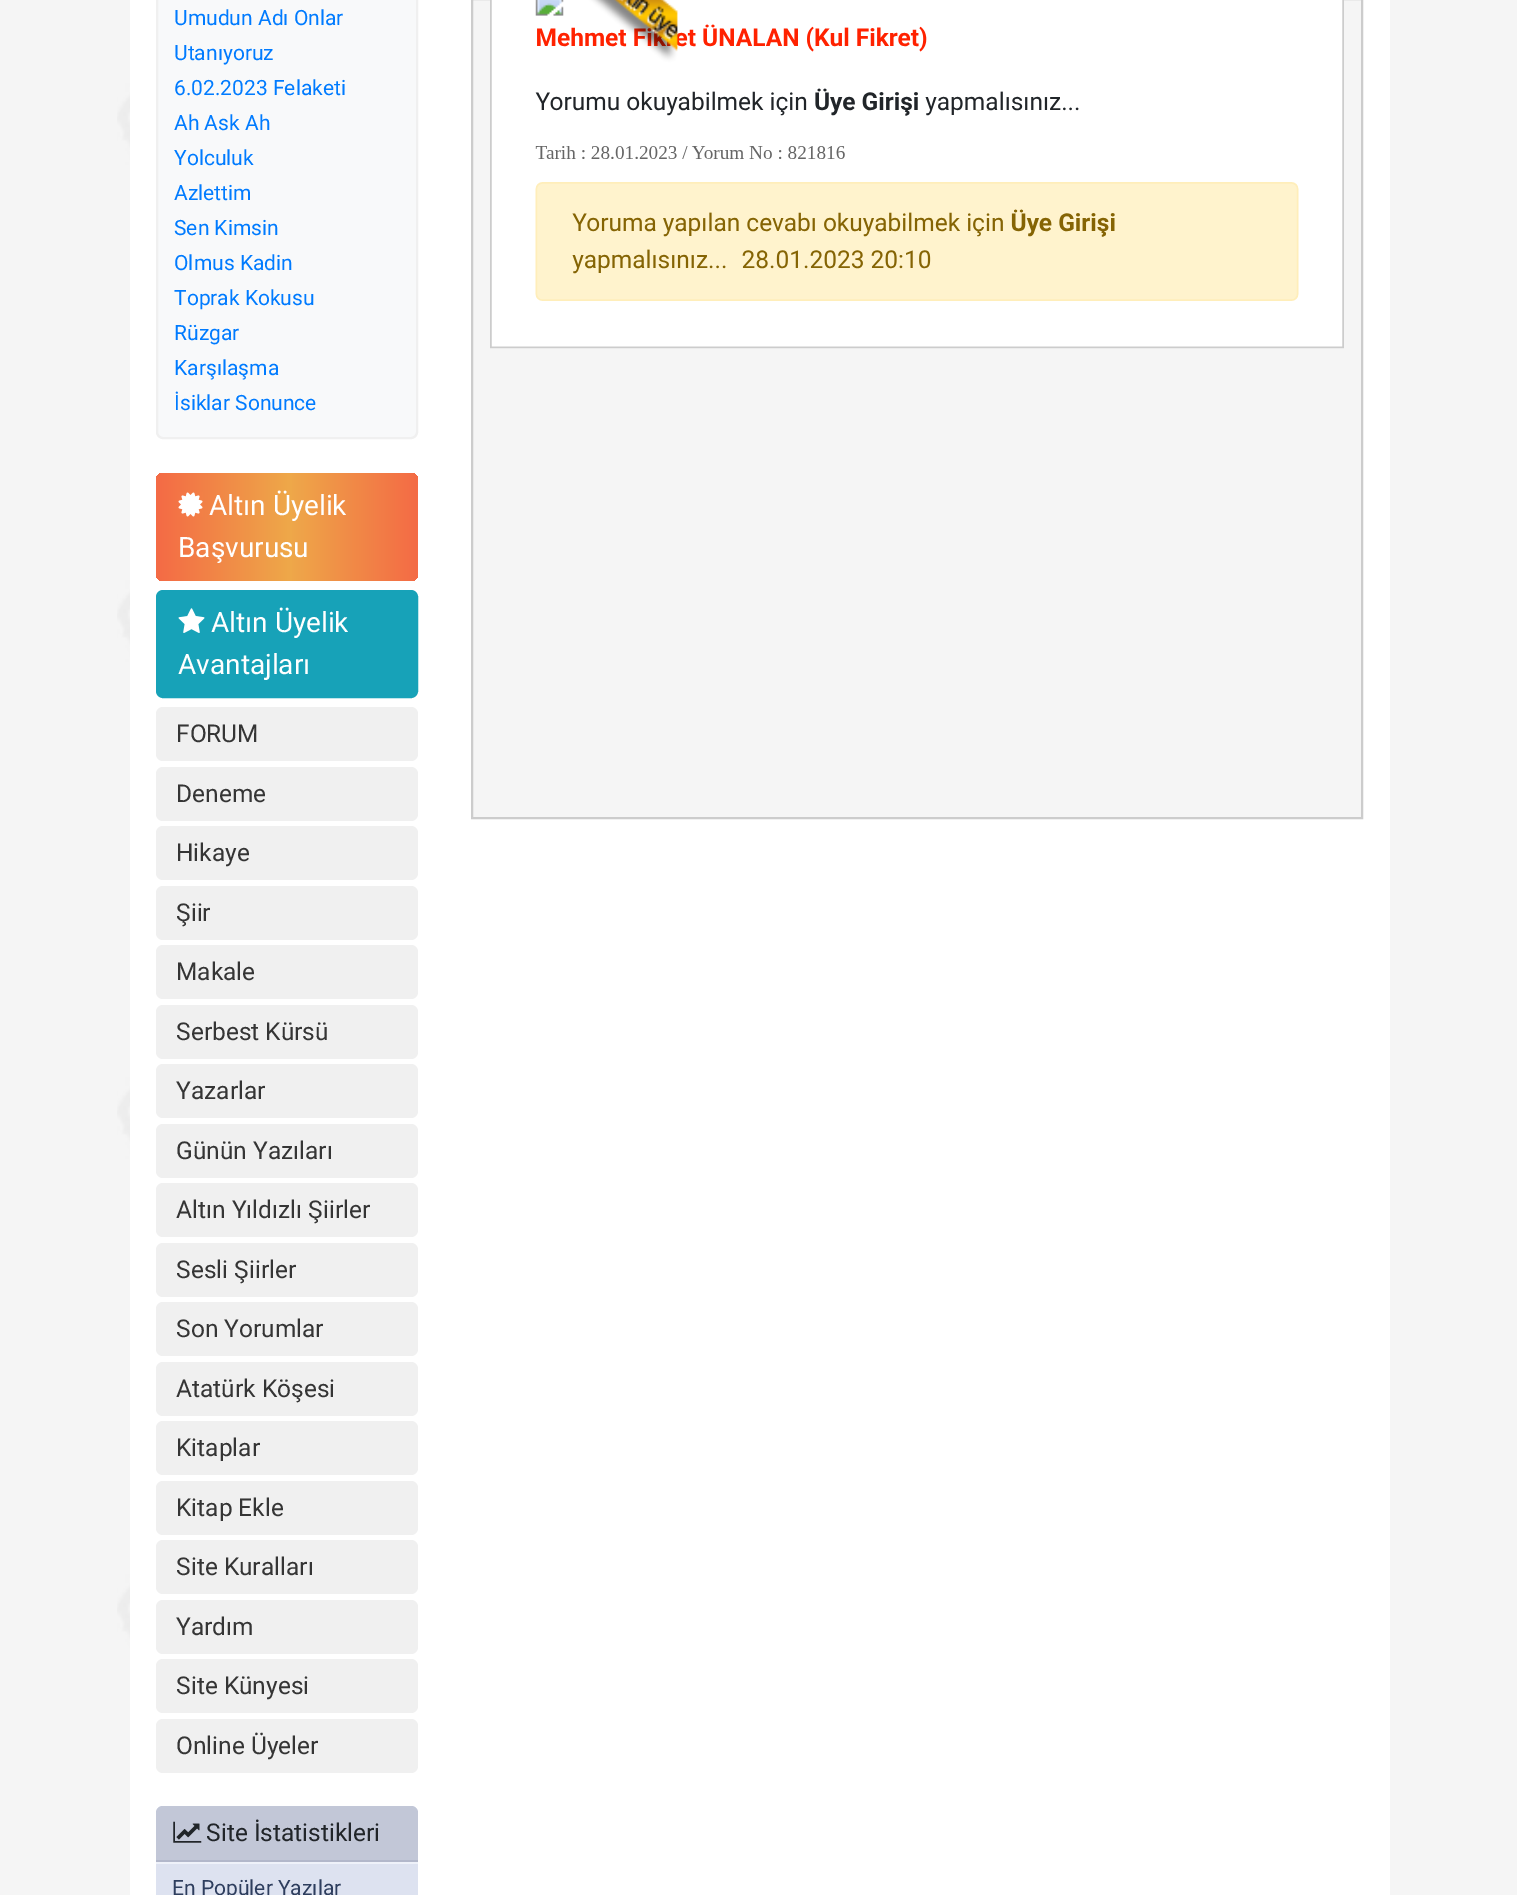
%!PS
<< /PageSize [1517 1895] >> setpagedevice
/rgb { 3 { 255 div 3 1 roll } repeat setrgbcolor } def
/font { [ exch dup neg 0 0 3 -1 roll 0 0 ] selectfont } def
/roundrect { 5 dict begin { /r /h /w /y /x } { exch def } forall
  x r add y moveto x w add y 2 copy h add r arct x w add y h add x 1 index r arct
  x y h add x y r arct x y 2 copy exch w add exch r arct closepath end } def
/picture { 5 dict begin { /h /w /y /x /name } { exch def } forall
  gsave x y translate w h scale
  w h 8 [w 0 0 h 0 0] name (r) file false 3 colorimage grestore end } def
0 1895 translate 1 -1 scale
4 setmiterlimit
245 245 245 rgb
0 0 1517 1895 rectfill
(img/1.rgb) 117 0 13 1648 picture
255 255 255 rgb
130 0 1260 1895 rectfill
248 249 250 rgb
157 -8 260 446 6 roundrect gsave fill grestore
240 240 240 rgb
2 setlinewidth
stroke
gsave
156 473 262 108 7 roundrect clip newpath
gsave 156 473 moveto 158 473 lineto 158 581 lineto 156 581 lineto closepath clip newpath
<< /ShadingType 2 /ColorSpace /DeviceRGB /Coords [-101 527 158 527] /Extend [true true] /Function << /FunctionType 3 /Domain [0 1] /Functions [<< /FunctionType 2 /Domain [0 1] /C0 [0.957 0.42 0.271] /C1 [0.933 0.659 0.286] /N 1 >> << /FunctionType 2 /Domain [0 1] /C0 [0.933 0.659 0.286] /C1 [0.957 0.42 0.271] /N 1 >>] /Bounds [0.51] /Encode [0 1 0 1] >> >> shfill grestore
gsave 158 473 moveto 417 473 lineto 417 581 lineto 158 581 lineto closepath clip newpath
<< /ShadingType 2 /ColorSpace /DeviceRGB /Coords [158 527 417 527] /Extend [true true] /Function << /FunctionType 3 /Domain [0 1] /Functions [<< /FunctionType 2 /Domain [0 1] /C0 [0.957 0.42 0.271] /C1 [0.933 0.659 0.286] /N 1 >> << /FunctionType 2 /Domain [0 1] /C0 [0.933 0.659 0.286] /C1 [0.957 0.42 0.271] /N 1 >>] /Bounds [0.51] /Encode [0 1 0 1] >> >> shfill grestore
gsave 417 473 moveto 418 473 lineto 418 581 lineto 417 581 lineto closepath clip newpath
<< /ShadingType 2 /ColorSpace /DeviceRGB /Coords [417 527 676 527] /Extend [true true] /Function << /FunctionType 3 /Domain [0 1] /Functions [<< /FunctionType 2 /Domain [0 1] /C0 [0.957 0.42 0.271] /C1 [0.933 0.659 0.286] /N 1 >> << /FunctionType 2 /Domain [0 1] /C0 [0.933 0.659 0.286] /C1 [0.957 0.42 0.271] /N 1 >>] /Bounds [0.51] /Encode [0 1 0 1] >> >> shfill grestore
grestore
(img/2.rgb) 178 492 25 25 picture
23 162 184 rgb
157 591 260 106 6 roundrect gsave fill grestore
stroke
(img/3.rgb) 178 608 27 25 picture
240 240 240 rgb
156 707 262 54 7 roundrect fill
156 767 262 54 7 roundrect fill
156 826 262 54 7 roundrect fill
156 886 262 54 7 roundrect fill
156 945 262 54 7 roundrect fill
156 1005 262 54 7 roundrect fill
156 1064 262 54 7 roundrect fill
156 1124 262 54 7 roundrect fill
156 1183 262 54 7 roundrect fill
156 1243 262 54 7 roundrect fill
156 1302 262 54 7 roundrect fill
156 1362 262 54 7 roundrect fill
156 1421 262 54 7 roundrect fill
156 1481 262 54 7 roundrect fill
156 1540 262 54 7 roundrect fill
156 1600 262 54 7 roundrect fill
156 1659 262 54 7 roundrect fill
156 1719 262 54 7 roundrect fill
221 226 240 rgb
156 1806 262 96 7 roundrect fill
194 199 215 rgb
163 1806 moveto 411 1806 lineto 415 1806 418 1809 418 1813 curveto 418 1862 lineto 156 1862 lineto 156 1813 lineto 156 1809 159 1806 163 1806 curveto closepath fill
178 183 202 rgb
156 1860 262 2 rectfill
(img/4.rgb) 173 1821 29 22 picture
238 241 249 rgb
156 1862 262 2 rectfill
245 245 245 rgb
472 -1 moveto 1362 -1 lineto 1362 818 lineto 472 818 lineto closepath gsave fill grestore
204 204 204 rgb
stroke
(img/5.rgb) 490 0 854 349 picture
/Roboto-Regular 21 font
0 123 255 rgb
[
  [(Umudun Adı Onlar) 174 25]
  [(Utanıyoruz) 174 60]
  [(6.02.2023 Felaketi) 174 95]
  [(Ah Ask Ah) 174 130]
  [(Yolculuk) 174 165]
  [(Azlettim) 174 200]
  [(Sen Kimsin) 174 235]
  [(Olmus Kadin) 174 270]
  [(Toprak Kokusu) 174 305]
  [(Rüzgar) 174 340]
  [(Karşılaşma) 174 375]
  [(İsiklar Sonunce) 174 410]
] { aload pop moveto show } forall
/Roboto-Regular 28 font
255 255 255 rgb
[
  [(Altın Üyelik) 209 515]
  [(Başvurusu) 178 557]
  [(Altın Üyelik) 211 632]
  [(Avantajları) 178 674]
] { aload pop moveto show } forall
/Roboto-Regular 24.5 font
53 53 53 rgb
[
  [(FORUM) 176 742]
  [(Deneme) 176 802]
  [(Hikaye) 176 861]
  [(Şiir) 176 921]
  [(Makale) 176 980]
  [(Serbest Kürsü) 176 1040]
  [(Yazarlar) 176 1099]
  [(Günün Yazıları) 176 1159]
  [(Altın Yıldızlı Şiirler) 176 1218]
  [(Sesli Şiirler) 176 1278]
  [(Son Yorumlar) 176 1337]
  [(Atatürk Köşesi) 176 1397]
  [(Kitaplar) 176 1456]
  [(Kitap Ekle) 176 1516]
  [(Site Kuralları) 176 1575]
  [(Yardım) 176 1635]
  [(Site Künyesi) 176 1694]
  [(Online Üyeler) 176 1754]
] { aload pop moveto show } forall
33 37 41 rgb
206 1841 moveto (Site İstatistikleri) show
/Roboto-Regular 21 font
46 62 94 rgb
172 1895 moveto (En Popüler Yazılar) show
showpage
